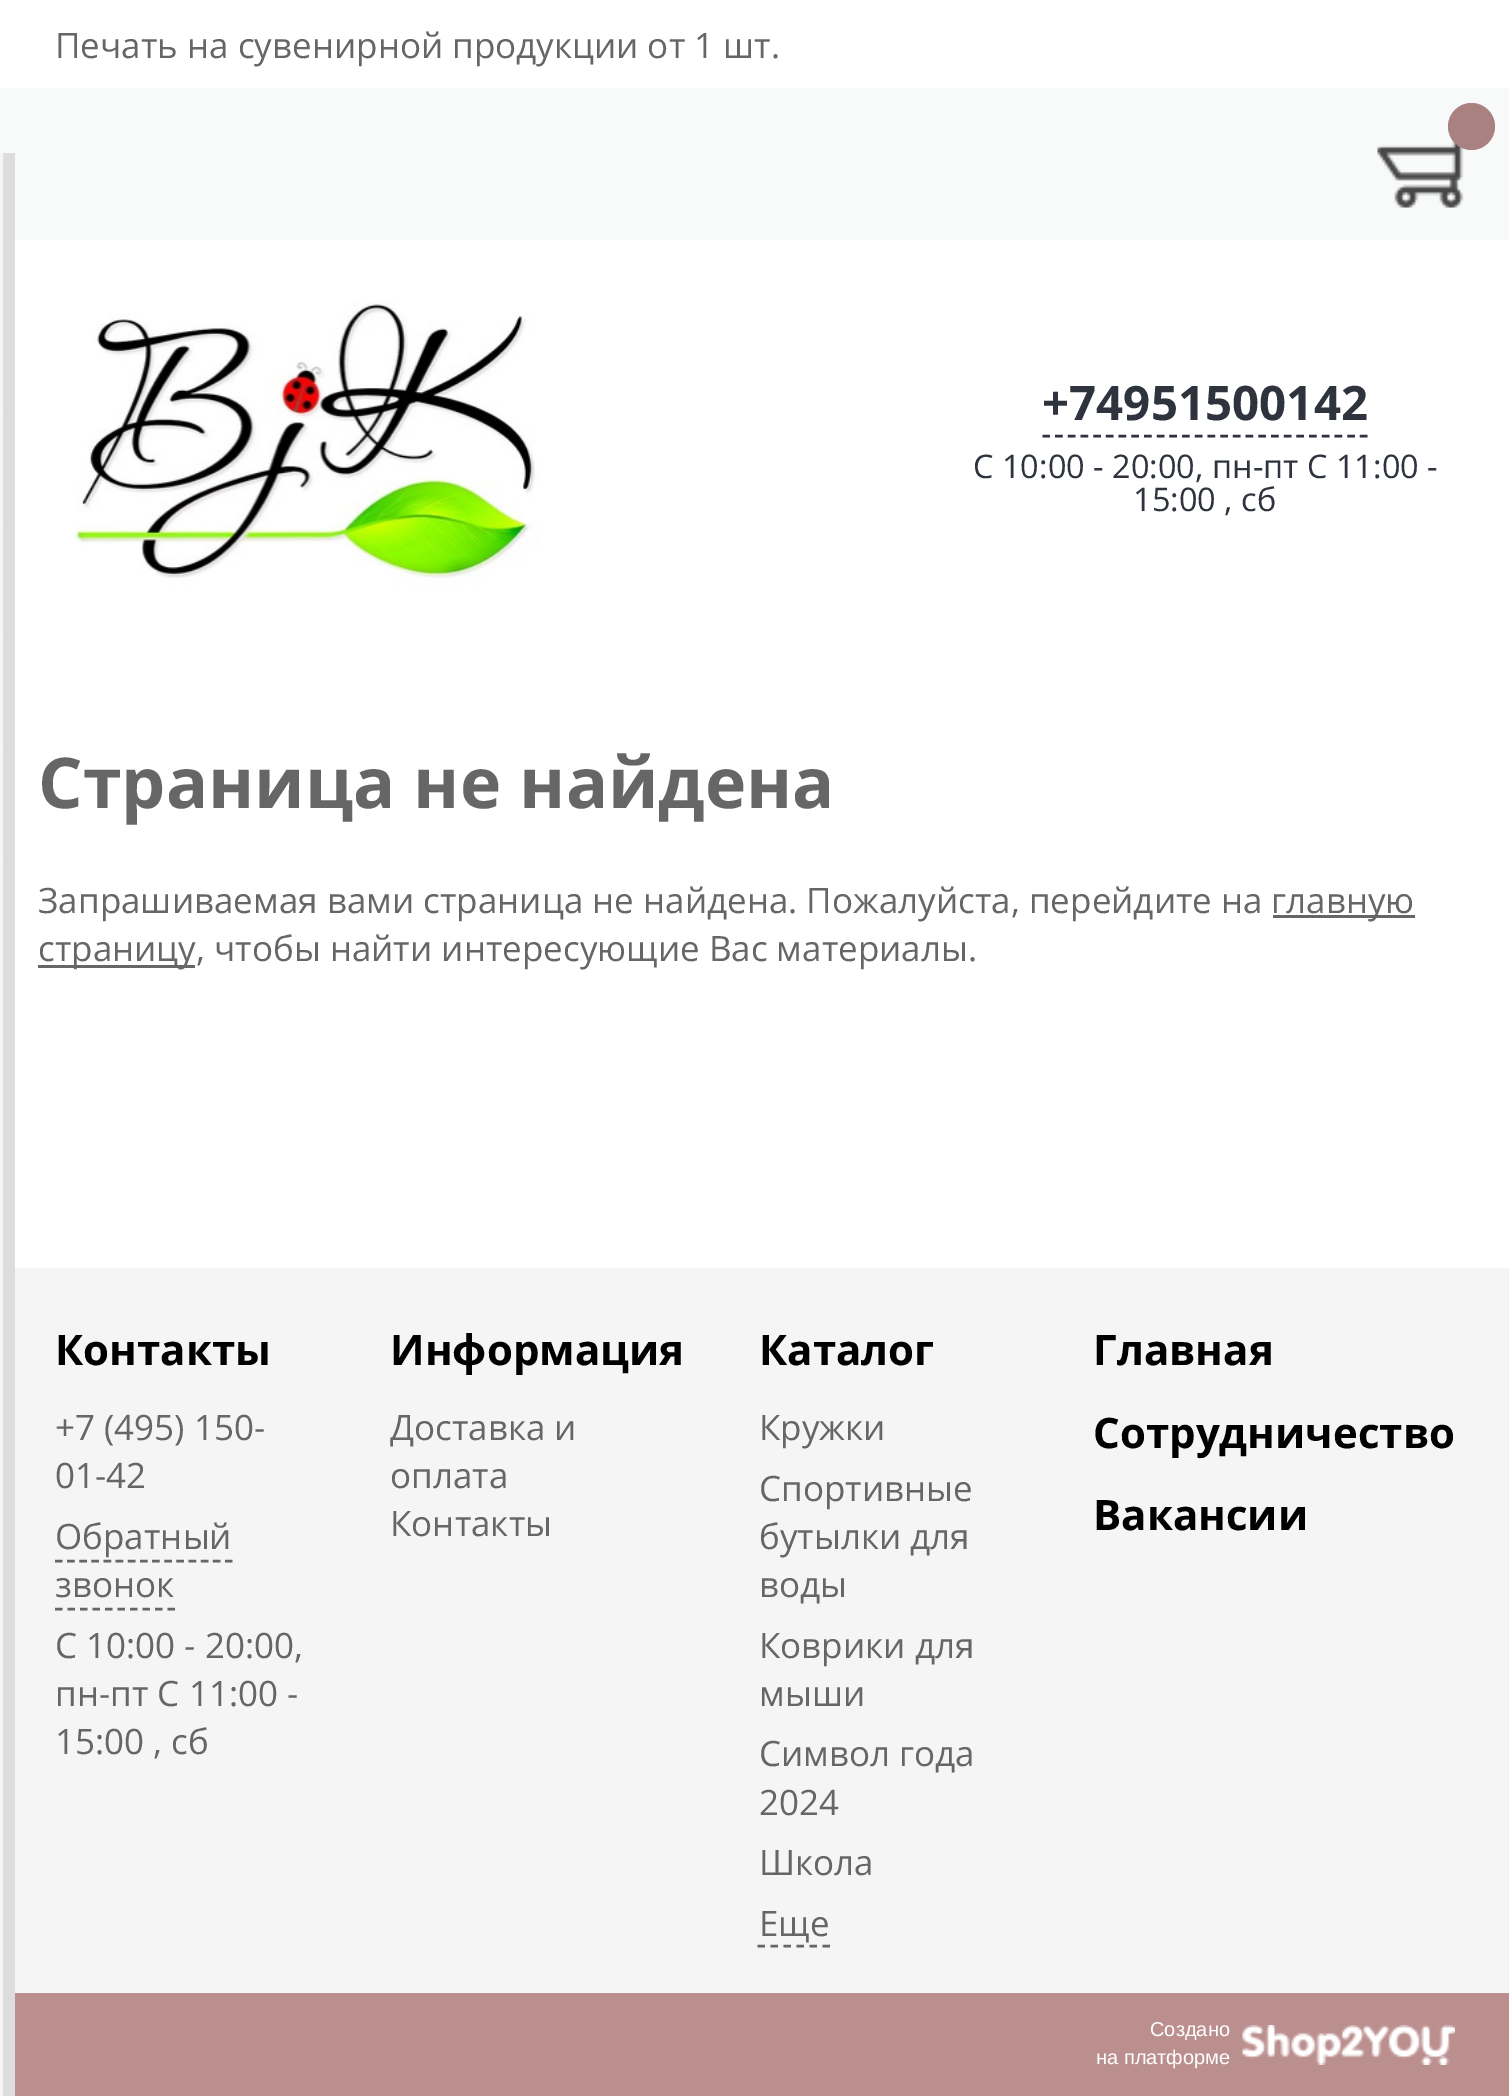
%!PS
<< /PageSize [1509 2096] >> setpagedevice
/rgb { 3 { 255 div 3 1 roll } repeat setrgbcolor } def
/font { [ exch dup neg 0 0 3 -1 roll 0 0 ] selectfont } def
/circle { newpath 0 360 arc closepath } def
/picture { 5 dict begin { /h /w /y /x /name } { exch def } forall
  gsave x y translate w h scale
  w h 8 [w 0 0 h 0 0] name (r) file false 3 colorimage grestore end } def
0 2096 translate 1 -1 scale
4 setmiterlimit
255 255 255 rgb
0 0 1509 2096 rectfill
[
  [0 88 1509 152 248 249 249]
  [0 153 3 1943 245 245 245]
  [3 153 12 1943 221 221 221]
  [0 408 3 3 248 248 248]
  [0 520 3 3 248 248 248]
  [0 633 3 3 248 248 248]
  [0 745 3 3 248 248 248]
  [0 858 3 3 248 248 248]
] { aload pop rgb rectfill } forall
(img/1.rgb) 1377 139 87 69 picture
169 129 129 rgb
1471.5 126.5 23.5 circle fill
(img/2.rgb) 75 302 466 285 picture
46 51 62 rgb
2.5 setlinewidth
[7.5 5.2] 0 setdash
1042.5 436 moveto 1367.5 436 lineto stroke
[
  [1273 915 142 3 102 102 102]
  [38 965 157 3 102 102 102]
  [15 1268 1494 725 245 245 245]
] { aload pop rgb rectfill } forall
102 102 102 rgb
[7.5 4.65] 0 setdash
55 1561 moveto 232.5 1561 lineto stroke
[7.5 5] 0 setdash
55 1609 moveto 175 1609 lineto stroke
[7.5 5.5] 0 setdash
757.5 1946 moveto 830 1946 lineto stroke
188 143 143 rgb
15 1993 1494 103 rectfill
(img/3.rgb) 1242 2025 213 40 picture
/OpenSans-Regular 35 font
102 102 102 rgb
55 58 moveto (Печать на сувенирной продукции от 1 шт.) show
/OpenSans-Bold 47.5 font
46 51 62 rgb
1042 420 moveto (+74951500142) show
/OpenSans-Regular 32.5 font
973 478 moveto (C 10:00 - 20:00, пн-пт С 11:00 -) show
1133 511 moveto (15:00 , сб) show
/OpenSans-Bold 70 font
102 102 102 rgb
38 808 moveto (Страница не найдена) show
/OpenSans-Regular 35 font
[
  [(Запрашиваемая вами страница не найдена. Пожалуйста, перейдите на) 38 913]
  [(главную) 1271 913]
  [(страницу, чтобы найти интересующие Вас материалы.) 38 961]
] { aload pop moveto show } forall
/OpenSans-Bold 42 font
0 0 0 rgb
55 1365 moveto (Контакты) show
/OpenSans-Regular 35 font
102 102 102 rgb
[
  [(+7 \(495\) 150-) 55 1440]
  [(01-42) 55 1488]
  [(Обратный) 55 1549]
  [(звонок) 55 1597]
  [(C 10:00 - 20:00,) 55 1658]
  [(пн-пт С 11:00 -) 55 1706]
  [(15:00 , сб) 55 1754]
] { aload pop moveto show } forall
/OpenSans-Bold 42 font
0 0 0 rgb
390 1365 moveto (Информация) show
/OpenSans-Regular 35 font
102 102 102 rgb
[
  [(Доставка и) 390 1440]
  [(оплата) 390 1488]
  [(Контакты) 390 1536]
] { aload pop moveto show } forall
/OpenSans-Bold 42 font
0 0 0 rgb
759 1365 moveto (Каталог) show
/OpenSans-Regular 35 font
102 102 102 rgb
[
  [(Кружки) 759 1440]
  [(Спортивные) 759 1501]
  [(бутылки для) 759 1549]
  [(воды) 759 1597]
  [(Коврики для) 759 1658]
  [(мыши) 759 1706]
  [(Символ года) 759 1766]
  [(2024) 759 1815]
  [(Школа) 759 1875]
  [(Еще) 759 1936]
] { aload pop moveto show } forall
/OpenSans-Bold 42 font
0 0 0 rgb
[
  [(Главная) 1093 1365]
  [(Сотрудничество) 1093 1448]
  [(Вакансии) 1093 1530]
] { aload pop moveto show } forall
/LiberationSans-Regular 20 font
255 255 255 rgb
1150 2036 moveto (Создано) show
1096 2064 moveto (на платформе) show
showpage
